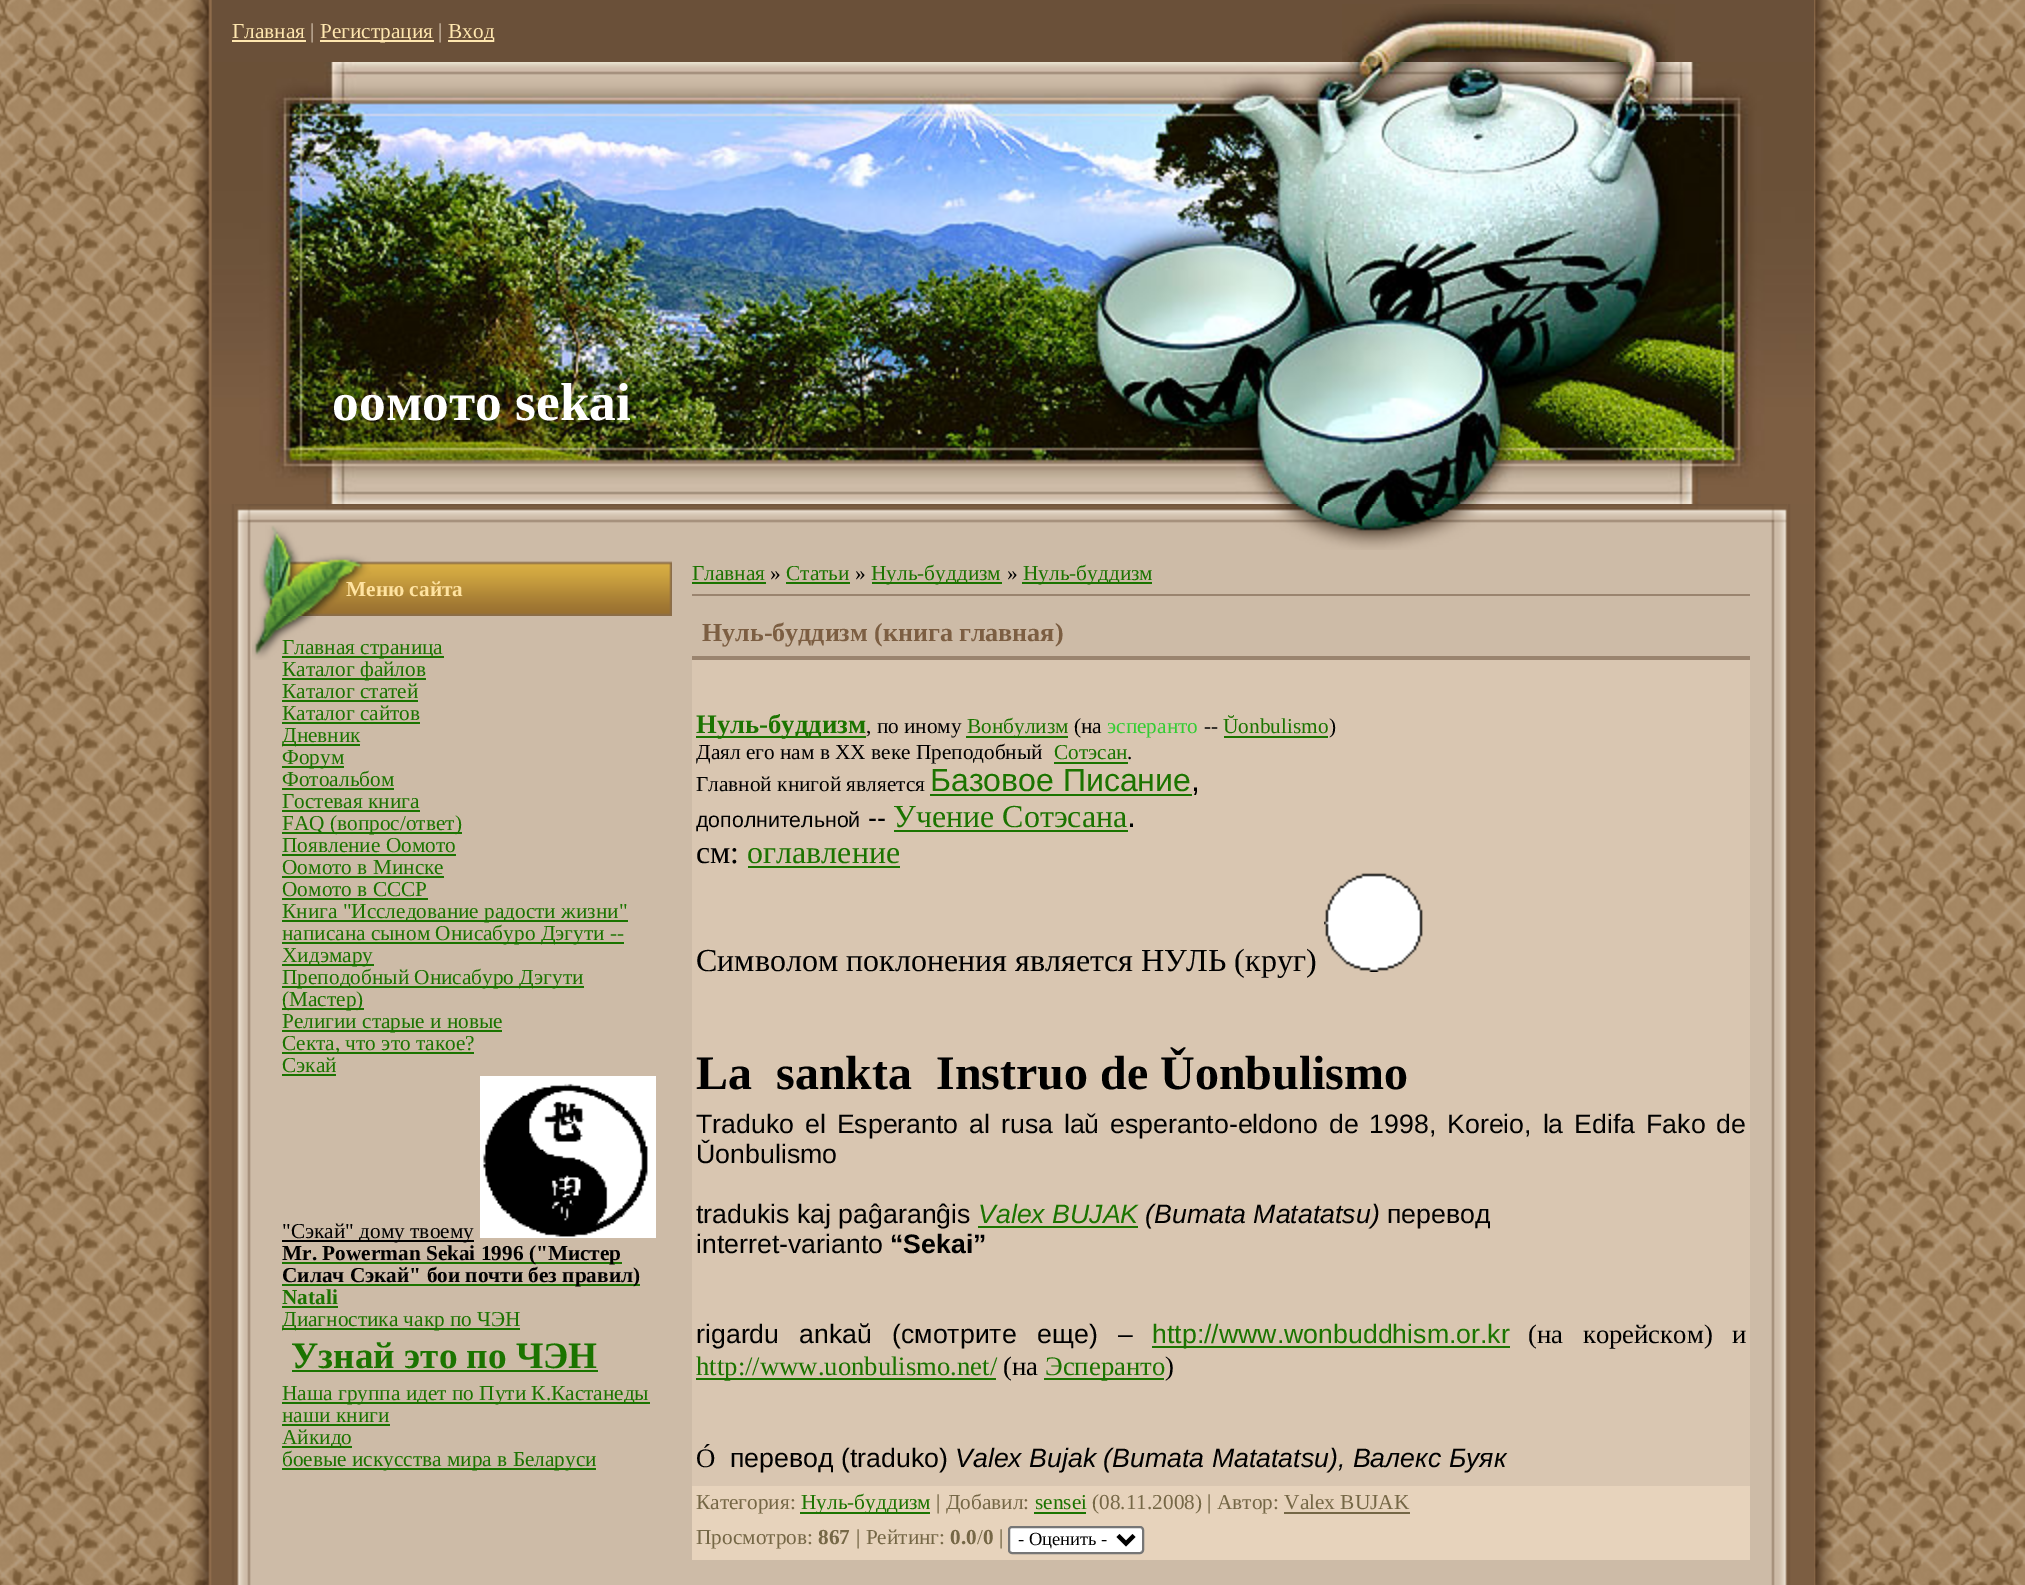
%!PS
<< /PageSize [2025 1585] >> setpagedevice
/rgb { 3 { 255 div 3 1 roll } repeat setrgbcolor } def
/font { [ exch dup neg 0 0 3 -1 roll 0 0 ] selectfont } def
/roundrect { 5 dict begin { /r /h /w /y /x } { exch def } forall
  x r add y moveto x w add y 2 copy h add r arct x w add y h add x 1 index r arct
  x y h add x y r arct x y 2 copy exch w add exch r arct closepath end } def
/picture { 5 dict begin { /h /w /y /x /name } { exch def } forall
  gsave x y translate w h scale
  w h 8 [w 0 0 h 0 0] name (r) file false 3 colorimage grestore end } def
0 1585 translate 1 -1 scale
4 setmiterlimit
255 255 255 rgb
0 0 2025 1585 rectfill
(img/1.rgb) 0 0 2025 1585 picture
106 80 57 rgb
212 0 1602 62 rectfill
(img/2.rgb) 1342 4 333 58 picture
[
  [232 40 74 2 255 231 175]
  [320 40 114 2 255 231 175]
  [448 40 46 2 255 231 175]
] { aload pop rgb rectfill } forall
(img/3.rgb) 212 62 1602 442 picture
(img/4.rgb) 212 504 1602 1081 picture
(img/5.rgb) 235 504 1552 46 picture
(img/6.rgb) 259 525 413 91 picture
(img/7.rgb) 252 616 64 44 picture
[
  [282 656 162 2 27 116 0]
  [282 678 144 2 27 116 0]
  [282 700 136 2 27 116 0]
  [282 722 138 2 27 116 0]
  [282 744 78 2 27 116 0]
  [282 766 62 2 27 116 0]
  [282 788 112 2 27 116 0]
  [282 810 138 2 27 116 0]
  [282 832 180 2 27 116 0]
  [282 854 174 2 27 116 0]
  [282 876 162 2 27 116 0]
  [282 898 146 2 27 116 0]
  [282 920 346 2 27 116 0]
  [282 942 342 2 27 116 0]
  [282 964 92 2 27 116 0]
  [282 986 302 2 27 116 0]
  [282 1008 82 2 27 116 0]
  [282 1030 220 2 27 116 0]
  [282 1052 192 2 27 116 0]
  [282 1074 54 2 27 116 0]
  [282 1240 192 2 0 0 0]
] { aload pop rgb rectfill } forall
(img/8.rgb) 480 1076 176 162 picture
[
  [282 1262 340 2 27 116 0]
  [282 1284 358 2 27 116 0]
  [282 1306 56 2 27 116 0]
  [282 1328 238 2 27 116 0]
  [292 1370 306 2 27 116 0]
  [282 1402 368 2 27 116 0]
  [282 1424 108 2 27 116 0]
  [282 1446 70 2 27 116 0]
  [282 1468 314 2 27 116 0]
  [692 582 74 2 27 116 0]
  [786 582 64 2 27 116 0]
  [872 582 130 2 27 116 0]
  [1022 582 130 2 27 116 0]
  [692 594 1058 2 154 132 111]
  [692 660 1058 826 217 198 177]
  [692 656 1058 4 154 132 111]
  [696 736 170 2 27 116 0]
  [966 736 102 2 27 116 0]
  [1224 736 104 2 27 116 0]
  [1054 762 74 2 27 116 0]
  [930 794 262 2 27 116 0]
  [894 830 234 2 27 116 0]
  [748 866 152 2 27 116 0]
] { aload pop rgb rectfill } forall
(img/9.rgb) 1324 873 99 99 picture
[
  [978 1226 160 2 27 116 0]
  [1152 1346 66 2 27 116 0]
  [1218 1346 292 2 27 116 0]
  [696 1378 300 2 27 116 0]
  [1044 1378 120 2 27 116 0]
  [692 1486 1058 74 231 211 188]
  [800 1512 130 2 27 116 0]
  [1034 1512 52 2 27 116 0]
  [1284 1512 126 2 117 103 70]
] { aload pop rgb rectfill } forall
255 255 255 rgb
1009 1527 134 26 3 roundrect gsave fill grestore
118 118 118 rgb
2 setlinewidth
stroke
0 0 0 rgb
4 setlinewidth
1118 1535.5 moveto 1126 1543.5 lineto 1134 1535.5 lineto stroke
/LiberationSerif-Regular 21.3 font
255 231 175 rgb
232 38 moveto (Главная) show
205 187 167 rgb
310 38 moveto (|) show
255 231 175 rgb
320 38 moveto (Регистрация) show
205 187 167 rgb
438 38 moveto (|) show
255 231 175 rgb
448 38 moveto (Вход) show
/LiberationSerif-Bold 53.5 font
255 255 255 rgb
332 420 moveto (оомото sekai) show
/LiberationSerif-Bold 21.3 font
255 227 161 rgb
346 596 moveto (Меню сайта) show
/LiberationSerif-Regular 21.3 font
27 116 0 rgb
[
  [(Главная страница) 282 654]
  [(Каталог файлов) 282 676]
  [(Каталог статей) 282 698]
  [(Каталог сайтов) 282 720]
  [(Дневник) 282 742]
  [(Форум) 282 764]
  [(Фотоальбом) 282 786]
  [(Гостевая книга) 282 808]
  [(FAQ \(вопрос/ответ\)) 282 830]
  [(Появление Оомото) 282 852]
  [(Оомото в Минске) 282 874]
  [(Оомото в СССР) 282 896]
  [(Книга "Исследование радости жизни") 282 918]
  [(написана сыном Онисабуро Дэгути --) 282 940]
  [(Хидэмару) 282 962]
  [(Преподобный Онисабуро Дэгути) 282 984]
  [(\(Мастер\)) 282 1006]
  [(Религии старые и новые) 282 1028]
  [(Секта, что это такое?) 282 1050]
  [(Сэкай) 282 1072]
] { aload pop moveto show } forall
0 0 0 rgb
282 1238 moveto ("Сэкай" дому твоему) show
/LiberationSerif-Bold 21.3 font
282 1260 moveto (Mr. Powerman Sekai 1996 \("Мистер) show
282 1282 moveto (Силач Сэкай" бои почти без правил\)) show
27 116 0 rgb
282 1304 moveto (Natali) show
/LiberationSerif-Regular 21.3 font
282 1326 moveto (Диагностика чакр по ЧЭН) show
/LiberationSerif-Bold 37.25 font
291 1368 moveto (Узнай это по ЧЭН) show
/LiberationSerif-Regular 21.3 font
[
  [(Наша группа идет по Пути К.Кастанеды) 282 1400]
  [(наши книги) 282 1422]
  [(Айкидо) 282 1444]
  [(боевые искусства мира в Беларуси) 282 1466]
  [(Главная) 692 580]
] { aload pop moveto show } forall
0 0 0 rgb
770 580 moveto (») show
27 116 0 rgb
786 580 moveto (Статьи) show
0 0 0 rgb
855 580 moveto (») show
27 116 0 rgb
871 580 moveto (Нуль-буддизм) show
0 0 0 rgb
1007 580 moveto (») show
27 116 0 rgb
1023 580 moveto (Нуль-буддизм) show
/LiberationSerif-Bold 26 font
124 94 66 rgb
702 641 moveto (Нуль-буддизм \(книга главная\)) show
/LiberationSerif-Bold 26.7 font
27 116 0 rgb
696 733 moveto (Нуль-буддизм) show
/LiberationSerif-Regular 21.3 font
0 0 0 rgb
866 733 moveto (, по иному) show
27 116 0 rgb
967 733 moveto (Вонбулизм) show
0 0 0 rgb
1074 733 moveto (\(на) show
50 205 50 rgb
1107 733 moveto (эсперанто) show
0 0 0 rgb
1204 733 moveto (--) show
27 116 0 rgb
1223 733 moveto (Ŭonbulismo) show
0 0 0 rgb
1329 733 moveto (\)) show
696 759 moveto (Даял его нам в ХХ веке Преподобный) show
27 116 0 rgb
1054 759 moveto (Сотэсан) show
0 0 0 rgb
1127 759 moveto (.) show
696 791 moveto (Главной книгой является) show
/LiberationSans-Regular 32 font
27 116 0 rgb
930 791 moveto (Базовое Писание) show
0 0 0 rgb
1191 791 moveto (,) show
/LiberationSans-Regular 21.3 font
696 827 moveto (дополнительной) show
/LiberationSans-Regular 26.7 font
868 827 moveto (--) show
/LiberationSerif-Regular 32 font
27 116 0 rgb
893 827 moveto (Учение Сотэсана) show
/LiberationSans-Regular 32 font
0 0 0 rgb
1127 827 moveto (.) show
/LiberationSerif-Regular 32 font
696 863 moveto (см:) show
27 116 0 rgb
747 863 moveto (оглавление) show
0 0 0 rgb
696 971 moveto (Символом поклонения является НУЛЬ \(круг\)) show
/LiberationSerif-Bold 48 font
[
  [(La) 696 1089]
  [(sankta) 776 1089]
  [(Instruo de Ǔonbulismo) 936 1089]
] { aload pop moveto show } forall
/LiberationSans-Regular 26.7 font
696 1133 moveto 3.5 0 32 (Traduko el Esperanto al rusa la) widthshow
1084 1133 moveto (ǔ) show
1110 1133 moveto 3.5 0 32 (esperanto-eldono de 1998, Koreio, la Edifa Fako de) widthshow
696 1163 moveto (Ǔonbulismo) show
696 1223 moveto (tradukis kaj paĝaranĝis) show
/LiberationSans-Italic 26.7 font
27 116 0 rgb
978 1223 moveto (Valex BUJAK) show
0 0 0 rgb
1145 1223 moveto (\(Bumata Matatatsu\)) show
/LiberationSans-Regular 26.7 font
1387 1223 moveto (перевод) show
696 1253 moveto (interret-varianto) show
/LiberationSans-Bold 26.7 font
890 1253 moveto (“Sekai”) show
/LiberationSans-Regular 26.7 font
696 1343 moveto (rigardu) show
799 1343 moveto (ankaŭ) show
892 1343 moveto 13 0 32 (\(смотрите еще\) –) widthshow
27 116 0 rgb
1152 1343 moveto (http://www.wonbuddhism.or.kr) show
/LiberationSerif-Regular 26.7 font
0 0 0 rgb
1528 1343 moveto 13 0 32 (\(на корейском\) и) widthshow
27 116 0 rgb
696 1375 moveto (http://www.uonbulismo.net/) show
0 0 0 rgb
1003 1375 moveto (\(на) show
27 116 0 rgb
1045 1375 moveto (Эсперанто) show
0 0 0 rgb
1165 1375 moveto (\)) show
696 1467 moveto (Ó) show
/LiberationSans-Regular 26.7 font
730 1467 moveto (перевод \(traduko\)) show
/LiberationSans-Italic 26.7 font
955 1467 moveto (Valex Bujak \(Bumata Matatatsu\), Валекс Буяк) show
/LiberationSerif-Regular 21.3 font
117 103 70 rgb
696 1509 moveto (Категория:) show
27 116 0 rgb
801 1509 moveto (Нуль-буддизм) show
117 103 70 rgb
936 1509 moveto (| Добавил:) show
27 116 0 rgb
1035 1509 moveto (sensei) show
117 103 70 rgb
1092 1509 moveto (\(08.11.2008\) | Автор: Valex BUJAK) show
696 1544 moveto (Просмотров:) show
/LiberationSerif-Bold 21.3 font
818 1544 moveto (867) show
/LiberationSerif-Regular 21.3 font
856 1544 moveto (| Рейтинг:) show
/LiberationSerif-Bold 21.3 font
950 1544 moveto (0.0) show
/LiberationSerif-Regular 21.3 font
977 1544 moveto (/) show
/LiberationSerif-Bold 21.3 font
983 1544 moveto (0) show
/LiberationSerif-Regular 21.3 font
999 1544 moveto (|) show
/LiberationSerif-Regular 18.5 font
0 0 0 rgb
1018 1545 moveto (- Оценить -) show
showpage
